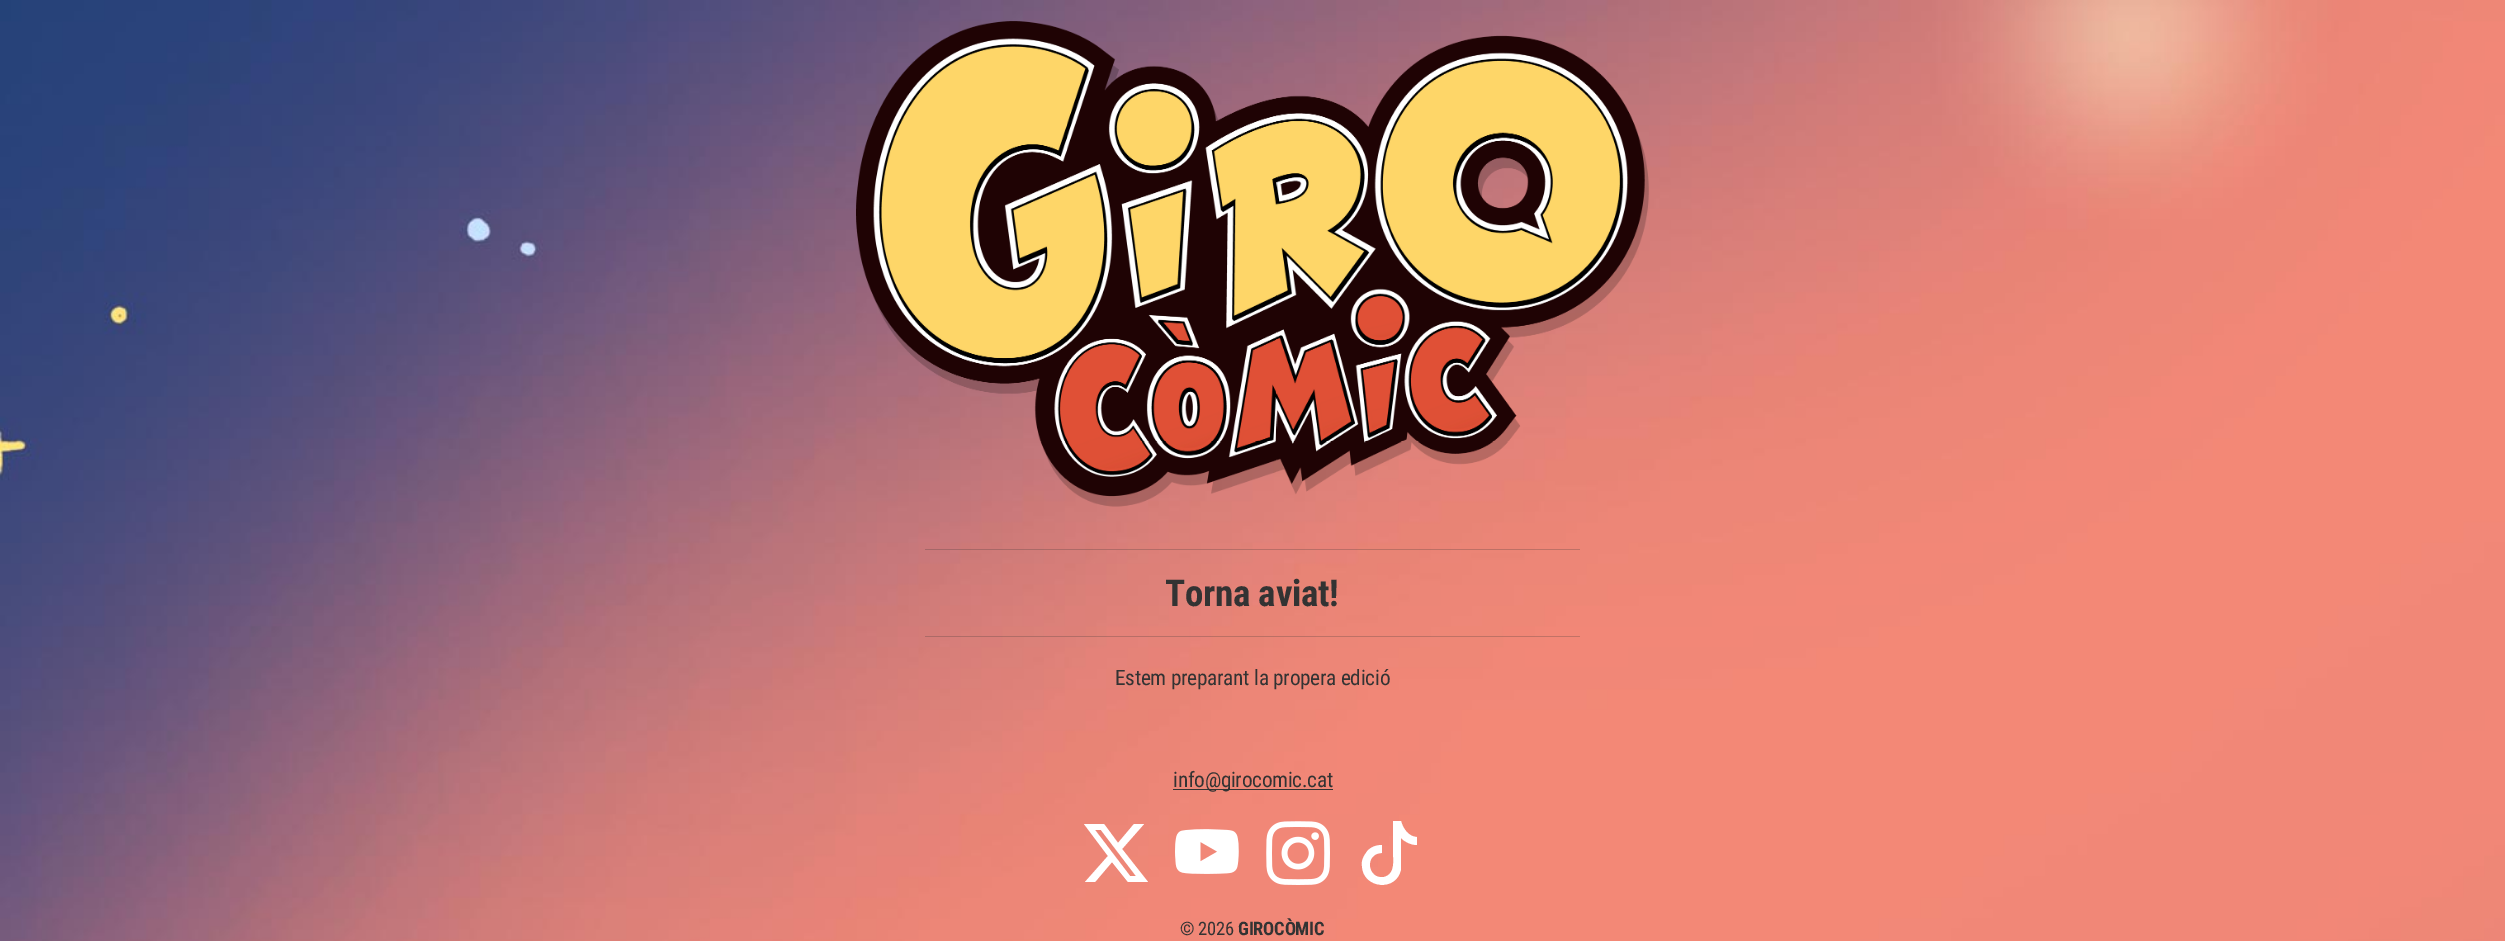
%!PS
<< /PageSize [2505 941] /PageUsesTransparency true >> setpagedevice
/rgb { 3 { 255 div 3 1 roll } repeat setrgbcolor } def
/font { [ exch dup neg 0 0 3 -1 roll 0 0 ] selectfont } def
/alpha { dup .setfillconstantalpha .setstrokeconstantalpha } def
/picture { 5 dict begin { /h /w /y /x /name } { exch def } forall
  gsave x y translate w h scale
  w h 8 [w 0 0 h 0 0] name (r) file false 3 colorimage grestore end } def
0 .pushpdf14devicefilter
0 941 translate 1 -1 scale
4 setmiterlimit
255 255 255 rgb
0 0 2505 941 rectfill
(img/1.rgb) 0 0 2505 941 picture
(img/2.rgb) 856 21 793 486 picture
0.25 alpha
[
  [925 549 655 1 51 51 51]
  [925 636 655 1 51 51 51]
] { aload pop rgb rectfill } forall
1 alpha
[
  [1173 789 160 1 51 51 51]
] { aload pop rgb rectfill } forall
255 255 255 rgb
1134 824 moveto 1144 824 lineto 1122 849 lineto 1148 882 lineto 1128 882 lineto 1112 862 lineto 1095 882 lineto 1085 882 lineto 1108 856 lineto 1084 824 lineto 1104 824 lineto 1118 843 lineto closepath 1130 876 moveto 1136 876 lineto 1101 830 lineto 1095 830 lineto closepath fill
(img/3.rgb) 1175 829 64 45 picture
(img/4.rgb) 1266 821 64 64 picture
1393 821 moveto 1401 821 lineto 1403 829 1409 837 1417 837 curveto 1417 845 lineto 1411 845 1405 842 1401 838 curveto 1401 869 lineto 1397 892 1363 889 1362 866 curveto 1361 862 1363 857 1366 853 curveto 1369 848 1375 845 1382 845 curveto 1382 853 lineto 1364 853 1367 880 1384 877 curveto 1396 874 1393 860 1393 850 curveto closepath fill
/RobotoCondensed-Bold 37 font
51 51 51 rgb
1165 606 moveto -0.25 0 (Torna aviat!) ashow
/RobotoCondensed-Regular 21.25 font
1115 685 moveto -0.25 0 (Estem preparant la propera edició) ashow
1173 787 moveto -0.25 0 (info@girocomic.cat) ashow
/RobotoCondensed-Regular 18.5 font
1180 935 moveto -0.25 0 (© 2026) ashow
/RobotoCondensed-Bold 18.5 font
1238 935 moveto -0.25 0 (GIROCÒMIC) ashow
.poppdf14devicefilter showpage
